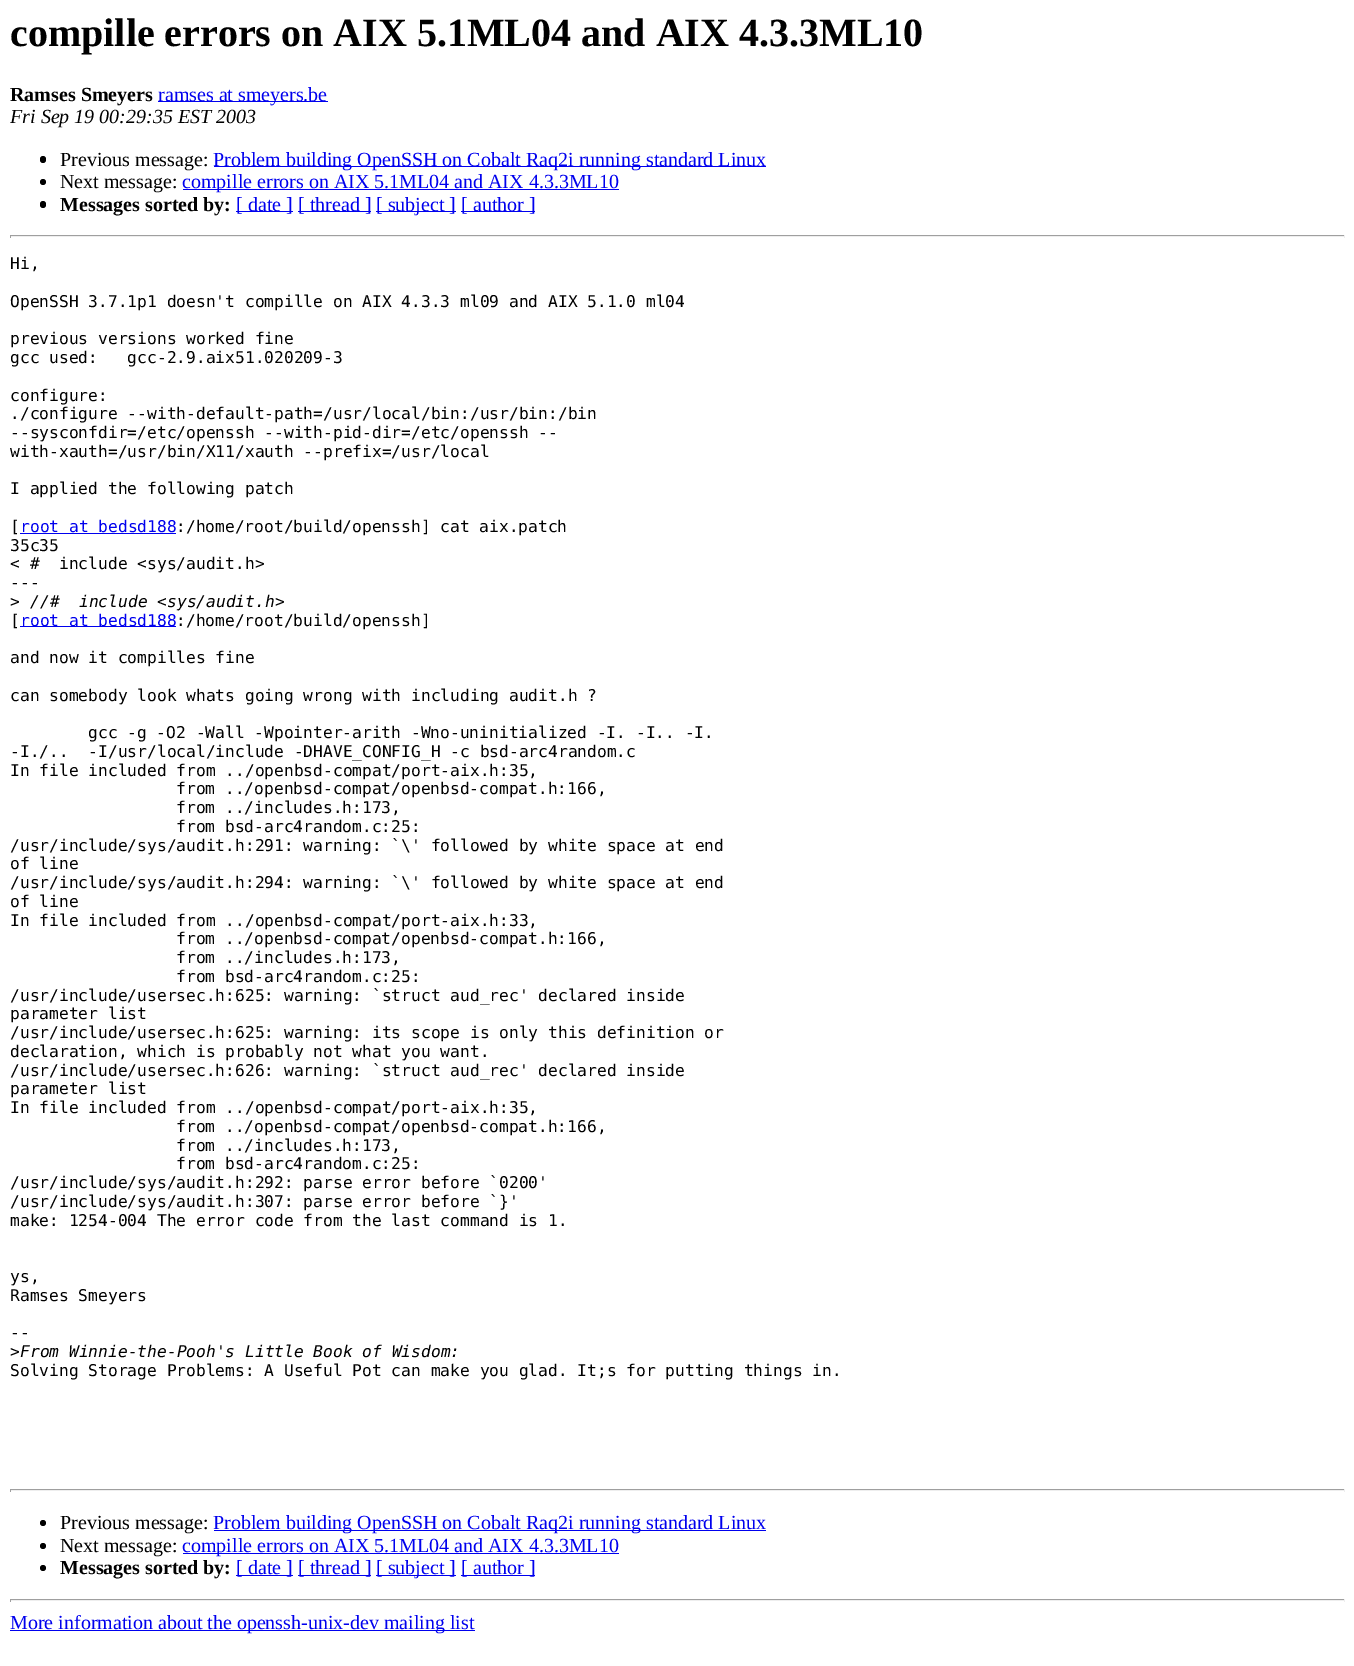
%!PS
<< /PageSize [1354 1666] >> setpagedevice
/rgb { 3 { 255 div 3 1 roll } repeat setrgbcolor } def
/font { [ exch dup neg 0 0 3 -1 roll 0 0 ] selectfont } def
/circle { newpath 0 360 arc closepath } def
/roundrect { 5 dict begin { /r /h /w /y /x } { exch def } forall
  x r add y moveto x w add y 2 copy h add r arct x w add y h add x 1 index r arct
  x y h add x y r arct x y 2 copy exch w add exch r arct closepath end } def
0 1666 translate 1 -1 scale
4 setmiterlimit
255 255 255 rgb
0 0 1354 1666 rectfill
0 0 238 rgb
158 101 170 1 rectfill
0 0 0 rgb
40 156 6 7 3 roundrect fill
0 0 238 rgb
214 166 552 1 rectfill
0 0 0 rgb
43 182 3 circle fill
0 0 238 rgb
183 189 436 1 rectfill
0 0 0 rgb
40 201 6 7 3 roundrect fill
[
  [236 211 57 1 0 0 238]
  [298 211 73 1 0 0 238]
  [376 211 80 1 0 0 238]
  [461 211 74 1 0 0 238]
  [10 235 1335 1 159 159 159]
  [1344 235 1 3 238 238 238]
  [10 236 1335 1 238 238 238]
  [10 235 1 3 159 159 159]
  [20 533 156 1 0 0 238]
  [20 626 156 1 0 0 238]
  [10 1489 1335 1 159 159 159]
  [1344 1489 1 3 238 238 238]
  [10 1490 1335 1 238 238 238]
  [10 1489 1 3 159 159 159]
] { aload pop rgb rectfill } forall
0 0 0 rgb
43 1523 3 circle fill
0 0 238 rgb
214 1530 552 1 rectfill
0 0 0 rgb
43 1546 3 circle fill
0 0 238 rgb
183 1553 436 1 rectfill
0 0 0 rgb
43 1568 3 circle fill
[
  [236 1575 57 1 0 0 238]
  [298 1575 73 1 0 0 238]
  [376 1575 80 1 0 0 238]
  [461 1575 74 1 0 0 238]
  [10 1599 1335 1 159 159 159]
  [1344 1599 1 3 238 238 238]
  [10 1600 1335 1 238 238 238]
  [10 1599 1 3 159 159 159]
  [10 1630 465 1 0 0 238]
] { aload pop rgb rectfill } forall
/LiberationSerif-Bold 40 font
0 0 0 rgb
10 46 moveto (compille errors on AIX 5.1ML04 and AIX 4.3.3ML10) show
/LiberationSerif-Bold 20 font
10 101 moveto (Ramses Smeyers) show
/LiberationSerif-Regular 20 font
0 0 238 rgb
158 101 moveto (ramses at smeyers.be) show
/LiberationSerif-Italic 20 font
0 0 0 rgb
10 123 moveto (Fri Sep 19 00:29:35 EST 2003) show
/LiberationSerif-Regular 20 font
60 166 moveto (Previous message:) show
0 0 238 rgb
213 166 moveto (Problem building OpenSSH on Cobalt Raq2i running standard Linux) show
0 0 0 rgb
60 188 moveto (Next message:) show
0 0 238 rgb
182 188 moveto (compille errors on AIX 5.1ML04 and AIX 4.3.3ML10) show
/LiberationSerif-Bold 20 font
0 0 0 rgb
60 211 moveto (Messages sorted by:) show
/LiberationSerif-Regular 20 font
0 0 238 rgb
[
  [([ date ]) 236 211]
  [([ thread ]) 298 211]
  [([ subject ]) 376 211]
  [([ author ]) 461 211]
] { aload pop moveto show } forall
/DejaVuSansMono-Regular 16.25 font
0 0 0 rgb
[
  [(Hi,) 10 269]
  [(OpenSSH 3.7.1p1 doesn't compille on AIX 4.3.3 ml09 and AIX 5.1.0 ml04) 10 307]
  [(previous versions worked fine) 10 344]
  [(gcc used:   gcc-2.9.aix51.020209-3) 10 363]
  [(configure:) 10 401]
  [(./configure --with-default-path=/usr/local/bin:/usr/bin:/bin) 10 419]
  [(--sysconfdir=/etc/openssh --with-pid-dir=/etc/openssh --) 10 438]
  [(with-xauth=/usr/bin/X11/xauth --prefix=/usr/local) 10 457]
  [(I applied the following patch) 10 494]
  [([) 10 532]
] { aload pop moveto show } forall
0 0 238 rgb
20 532 moveto (root at bedsd188) show
0 0 0 rgb
[
  [(:/home/root/build/openssh] cat aix.patch) 176 532]
  [(35c35) 10 551]
  [(< #  include <sys/audit.h>) 10 569]
  [(---) 10 588]
  [(>) 10 607]
] { aload pop moveto show } forall
/DejaVuSansMono-Italic 16.25 font
30 607 moveto (//#  include <sys/audit.h>) show
/DejaVuSansMono-Regular 16.25 font
10 626 moveto ([) show
0 0 238 rgb
20 626 moveto (root at bedsd188) show
0 0 0 rgb
[
  [(:/home/root/build/openssh]) 176 626]
  [(and now it compilles fine) 10 663]
  [(can somebody look whats going wrong with including audit.h ?) 10 701]
  [(gcc -g -O2 -Wall -Wpointer-arith -Wno-uninitialized -I. -I.. -I.) 88 738]
  [(-I./..  -I/usr/local/include -DHAVE_CONFIG_H -c bsd-arc4random.c) 10 757]
  [(In file included from ../openbsd-compat/port-aix.h:35,) 10 776]
  [(from ../openbsd-compat/openbsd-compat.h:166,) 176 794]
  [(from ../includes.h:173,) 176 813]
  [(from bsd-arc4random.c:25:) 176 832]
  [(/usr/include/sys/audit.h:291: warning: `\\' followed by white space at end) 10 851]
  [(of line) 10 869]
  [(/usr/include/sys/audit.h:294: warning: `\\' followed by white space at end) 10 888]
  [(of line) 10 907]
  [(In file included from ../openbsd-compat/port-aix.h:33,) 10 926]
  [(from ../openbsd-compat/openbsd-compat.h:166,) 176 944]
  [(from ../includes.h:173,) 176 963]
  [(from bsd-arc4random.c:25:) 176 982]
  [(/usr/include/usersec.h:625: warning: `struct aud_rec' declared inside) 10 1001]
  [(parameter list) 10 1019]
  [(/usr/include/usersec.h:625: warning: its scope is only this definition or) 10 1038]
  [(declaration, which is probably not what you want.) 10 1057]
  [(/usr/include/usersec.h:626: warning: `struct aud_rec' declared inside) 10 1076]
  [(parameter list) 10 1094]
  [(In file included from ../openbsd-compat/port-aix.h:35,) 10 1113]
  [(from ../openbsd-compat/openbsd-compat.h:166,) 176 1132]
  [(from ../includes.h:173,) 176 1151]
  [(from bsd-arc4random.c:25:) 176 1169]
  [(/usr/include/sys/audit.h:292: parse error before `0200') 10 1188]
  [(/usr/include/sys/audit.h:307: parse error before `}') 10 1207]
  [(make: 1254-004 The error code from the last command is 1.) 10 1226]
  [(ys,) 10 1282]
  [(Ramses Smeyers) 10 1301]
  [(--) 10 1338]
  [(>) 10 1357]
] { aload pop moveto show } forall
/DejaVuSansMono-Italic 16.25 font
20 1357 moveto (From Winnie-the-Pooh's Little Book of Wisdom:) show
/DejaVuSansMono-Regular 16.25 font
10 1376 moveto (Solving Storage Problems: A Useful Pot can make you glad. It;s for putting things in.) show
/LiberationSerif-Regular 20 font
60 1529 moveto (Previous message:) show
0 0 238 rgb
213 1529 moveto (Problem building OpenSSH on Cobalt Raq2i running standard Linux) show
0 0 0 rgb
60 1552 moveto (Next message:) show
0 0 238 rgb
182 1552 moveto (compille errors on AIX 5.1ML04 and AIX 4.3.3ML10) show
/LiberationSerif-Bold 20 font
0 0 0 rgb
60 1574 moveto (Messages sorted by:) show
/LiberationSerif-Regular 20 font
0 0 238 rgb
[
  [([ date ]) 236 1574]
  [([ thread ]) 298 1574]
  [([ subject ]) 376 1574]
  [([ author ]) 461 1574]
  [(More information about the openssh-unix-dev mailing list) 10 1629]
] { aload pop moveto show } forall
showpage
